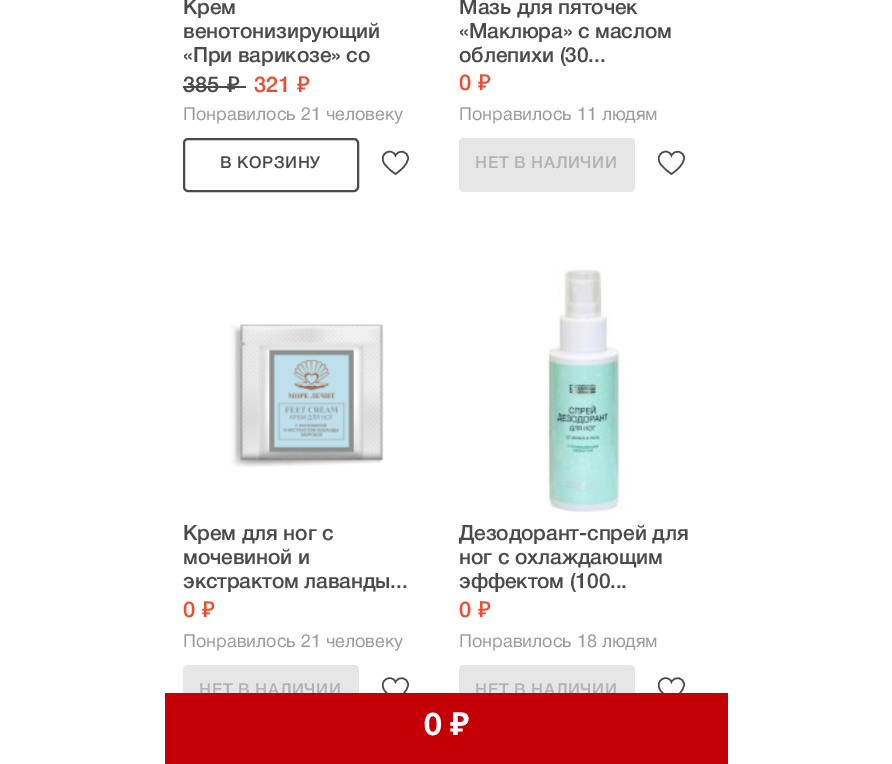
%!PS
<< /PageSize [892 764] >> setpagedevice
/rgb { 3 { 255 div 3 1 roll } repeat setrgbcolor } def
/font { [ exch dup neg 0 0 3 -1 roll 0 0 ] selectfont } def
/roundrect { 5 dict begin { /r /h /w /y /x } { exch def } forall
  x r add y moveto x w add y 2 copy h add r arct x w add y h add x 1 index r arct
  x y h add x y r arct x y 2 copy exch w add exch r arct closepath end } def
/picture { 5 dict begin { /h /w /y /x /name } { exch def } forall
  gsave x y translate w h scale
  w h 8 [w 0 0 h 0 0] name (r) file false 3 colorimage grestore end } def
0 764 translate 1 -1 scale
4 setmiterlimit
255 255 255 rgb
0 0 892 764 rectfill
74 74 74 rgb
183 86 63 2 rectfill
2 setlinewidth
184 139 174 52 4 roundrect stroke
1.5 setlinewidth
408 158 moveto 408 164.5 400.5 170.5 395.5 174 curveto 391.5 171.5 387.5 168 384.5 164 curveto 377.5 153.5 392 147 395.5 155.5 curveto 398.5 149 408 151 408 158 curveto closepath stroke
230 230 230 rgb
459 138 176 54 5 roundrect fill
74 74 74 rgb
684 158 moveto 684 164.5 676.5 170.5 671.5 174 curveto 667.5 171.5 663.5 168 660.5 164 curveto 653.5 153.5 668 147 671.5 155.5 curveto 674.5 149 684 151 684 158 curveto closepath stroke
(img/1.rgb) 230 324 154 144 picture
230 230 230 rgb
183 665 176 54 5 roundrect fill
74 74 74 rgb
408 684.5 moveto 408 691 400.5 697 395.5 700.5 curveto 391.5 698 387.5 694.5 384.5 690.5 curveto 377.5 680 392 673.5 395.5 682 curveto 398.5 675.5 408 677.5 408 684.5 curveto closepath stroke
(img/2.rgb) 546 268 80 245 picture
230 230 230 rgb
459 665 176 54 5 roundrect fill
74 74 74 rgb
684 684.5 moveto 684 691 676.5 697 671.5 700.5 curveto 667.5 698 663.5 694.5 660.5 690.5 curveto 653.5 680 668 673.5 671.5 682 curveto 674.5 675.5 684 677.5 684 684.5 curveto closepath stroke
/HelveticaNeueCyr-Medium 21 font
183 14 moveto -0.15 0 (Крем) ashow
183 38 moveto -0.15 0 (венотонизирующий) ashow
183 62 moveto -0.15 0 («При варикозе» со) ashow
/HelveticaNeueCyr-Medium 22 font
183 92 moveto (385) show
/NotoSans-Medium 22 font
227 92 moveto (₽) show
/HelveticaNeueCyr-Medium 22 font
242 74 48 rgb
254 92 moveto (321) show
/NotoSans-Medium 22 font
297 92 moveto (₽) show
/HelveticaNeueCyr-Regular 18 font
155 155 155 rgb
183 120 moveto (Понравилось 21 человеку) show
/HelveticaNeueCyr-Medium 16.5 font
74 74 74 rgb
220 168 moveto 0.6 0 (В КОРЗИНУ) ashow
/HelveticaNeueCyr-Medium 21 font
459 14 moveto -0.15 0 (Мазь для пяточек) ashow
459 38 moveto -0.15 0 («Маклюра» с маслом) ashow
459 62 moveto -0.15 0 (облепихи \(30...) ashow
/HelveticaNeueCyr-Medium 22 font
242 74 48 rgb
459 90 moveto (0) show
/NotoSans-Medium 22 font
478 90 moveto (₽) show
/HelveticaNeueCyr-Regular 18 font
155 155 155 rgb
459 120 moveto (Понравилось 11 людям) show
/HelveticaNeueCyr-Medium 16.5 font
179 179 179 rgb
475 168 moveto 0.6 0 (НЕТ В НАЛИЧИИ) ashow
/HelveticaNeueCyr-Medium 21 font
74 74 74 rgb
183 540 moveto -0.15 0 (Крем для ног с) ashow
183 564 moveto -0.15 0 (мочевиной и) ashow
183 588 moveto -0.15 0 (экстрактом лаванды...) ashow
/HelveticaNeueCyr-Medium 22 font
242 74 48 rgb
183 617 moveto (0) show
/NotoSans-Medium 22 font
202 617 moveto (₽) show
/HelveticaNeueCyr-Regular 18 font
155 155 155 rgb
183 647 moveto (Понравилось 21 человеку) show
/HelveticaNeueCyr-Medium 16.5 font
179 179 179 rgb
199 695 moveto 0.6 0 (НЕТ В НАЛИЧИИ) ashow
/HelveticaNeueCyr-Medium 21 font
74 74 74 rgb
459 540 moveto -0.15 0 (Дезодорант-спрей для) ashow
459 564 moveto -0.15 0 (ног с охлаждающим) ashow
459 588 moveto -0.15 0 (эффектом \(100...) ashow
/HelveticaNeueCyr-Medium 22 font
242 74 48 rgb
459 617 moveto (0) show
/NotoSans-Medium 22 font
478 617 moveto (₽) show
/HelveticaNeueCyr-Regular 18 font
155 155 155 rgb
459 647 moveto (Понравилось 18 людям) show
/HelveticaNeueCyr-Medium 16.5 font
179 179 179 rgb
475 695 moveto 0.6 0 (НЕТ В НАЛИЧИИ) ashow
196 0 6 rgb
165 693 563 71 rectfill
/HelveticaNeueCyr-Bold 32 font
255 255 255 rgb
424 735 moveto (0) show
/NotoSans-Bold 32 font
450 735 moveto (₽) show
showpage
